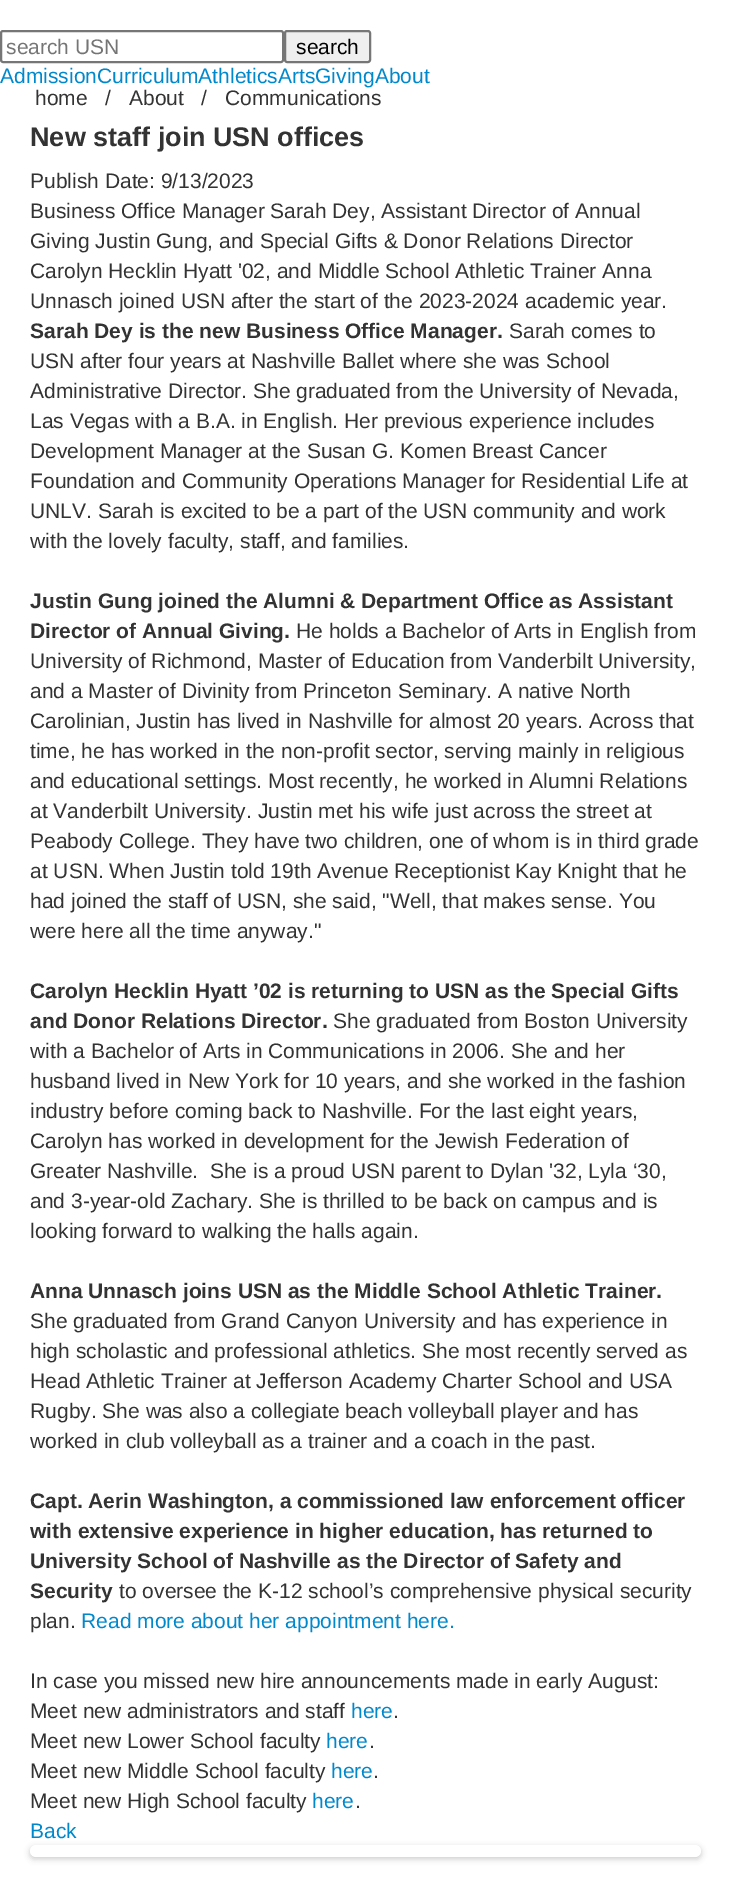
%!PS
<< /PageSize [730 1902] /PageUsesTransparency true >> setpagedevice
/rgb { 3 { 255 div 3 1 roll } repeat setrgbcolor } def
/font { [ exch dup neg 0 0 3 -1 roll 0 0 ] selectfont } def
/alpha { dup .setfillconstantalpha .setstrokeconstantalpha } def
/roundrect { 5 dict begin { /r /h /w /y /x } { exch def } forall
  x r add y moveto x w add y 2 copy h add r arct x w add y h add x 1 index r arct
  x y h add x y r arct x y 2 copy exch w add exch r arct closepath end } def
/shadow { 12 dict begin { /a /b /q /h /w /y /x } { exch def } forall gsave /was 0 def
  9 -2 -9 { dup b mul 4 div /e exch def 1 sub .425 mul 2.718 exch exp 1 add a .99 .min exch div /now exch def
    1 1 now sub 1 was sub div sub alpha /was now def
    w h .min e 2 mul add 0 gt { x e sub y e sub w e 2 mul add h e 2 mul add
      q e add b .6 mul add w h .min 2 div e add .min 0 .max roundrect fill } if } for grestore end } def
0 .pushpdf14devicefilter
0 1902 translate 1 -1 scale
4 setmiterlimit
255 255 255 rgb
0 0 730 1902 rectfill
118 118 118 rgb
2 setlinewidth
1 31 282 31 2 roundrect stroke
239 239 239 rgb
285 31 85 31 2 roundrect gsave fill grestore
118 118 118 rgb
stroke
0 0 0 rgb
30 1847 671 12 6 3 0.2 shadow
255 255 255 rgb
30 1845 671 12 6 roundrect fill
/LiberationSans-Regular 21 font
117 117 117 rgb
6 54 moveto (search USN) show
0 0 0 rgb
296 54 moveto (search) show
0 136 204 rgb
0 83 moveto (AdmissionCurriculumAthleticsArtsGivingAbout) show
51 51 51 rgb
[
  [(home) 35 105]
  [(/) 105 105]
  [(About) 129 105]
  [(/) 201 105]
  [(Communications) 225 105]
] { aload pop moveto show } forall
/LiberationSans-Bold 27 font
30 146 moveto (New staff join USN offices) show
/LiberationSans-Regular 21 font
[
  [(Publish Date: 9/13/2023) 30 188]
  [(Business Office Manager Sarah Dey, Assistant Director of Annual) 30 218]
  [(Giving Justin Gung, and Special Gifts & Donor Relations Director) 30 248]
  [(Carolyn Hecklin Hyatt '02, and Middle School Athletic Trainer Anna) 30 278]
  [(Unnasch joined USN after the start of the 2023-2024 academic year.) 30 308]
] { aload pop moveto show } forall
/LiberationSans-Bold 21 font
30 338 moveto (Sarah Dey is the new Business Office Manager.) show
/LiberationSans-Regular 21 font
[
  [(Sarah comes to) 509 338]
  [(USN after four years at Nashville Ballet where she was School) 30 368]
  [(Administrative Director. She graduated from the University of Nevada,) 30 398]
  [(Las Vegas with a B.A. in English. Her previous experience includes) 30 428]
  [(Development Manager at the Susan G. Komen Breast Cancer) 30 458]
  [(Foundation and Community Operations Manager for Residential Life at) 30 488]
  [(UNLV. Sarah is excited to be a part of the USN community and work) 30 518]
  [(with the lovely faculty, staff, and families.) 30 548]
] { aload pop moveto show } forall
/LiberationSans-Bold 21 font
30 608 moveto (Justin Gung joined the Alumni & Department Office as Assistant) show
30 638 moveto (Director of Annual Giving.) show
/LiberationSans-Regular 21 font
[
  [(He holds a Bachelor of Arts in English from) 296 638]
  [(University of Richmond, Master of Education from Vanderbilt University,) 30 668]
  [(and a Master of Divinity from Princeton Seminary. A native North) 30 698]
  [(Carolinian, Justin has lived in Nashville for almost 20 years. Across that) 30 728]
  [(time, he has worked in the non-profit sector, serving mainly in religious) 30 758]
  [(and educational settings. Most recently, he worked in Alumni Relations) 30 788]
  [(at Vanderbilt University. Justin met his wife just across the street at) 30 818]
  [(Peabody College. They have two children, one of whom is in third grade) 30 848]
  [(at USN. When Justin told 19th Avenue Receptionist Kay Knight that he) 30 878]
  [(had joined the staff of USN, she said, "Well, that makes sense. You) 30 908]
  [(were here all the time anyway.") 30 938]
] { aload pop moveto show } forall
/LiberationSans-Bold 21 font
30 998 moveto (Carolyn Hecklin Hyatt ’02 is returning to USN as the Special Gifts) show
30 1028 moveto (and Donor Relations Director.) show
/LiberationSans-Regular 21 font
[
  [(She graduated from Boston University) 333 1028]
  [(with a Bachelor of Arts in Communications in 2006. She and her) 30 1058]
  [(husband lived in New York for 10 years, and she worked in the fashion) 30 1088]
  [(industry before coming back to Nashville. For the last eight years,) 30 1118]
  [(Carolyn has worked in development for the Jewish Federation of) 30 1148]
  [(Greater Nashville.  She is a proud USN parent to Dylan '32, Lyla ‘30,) 30 1178]
  [(and 3-year-old Zachary. She is thrilled to be back on campus and is) 30 1208]
  [(looking forward to walking the halls again.) 30 1238]
] { aload pop moveto show } forall
/LiberationSans-Bold 21 font
30 1298 moveto (Anna Unnasch joins USN as the Middle School Athletic Trainer.) show
/LiberationSans-Regular 21 font
[
  [(She graduated from Grand Canyon University and has experience in) 30 1328]
  [(high scholastic and professional athletics. She most recently served as) 30 1358]
  [(Head Athletic Trainer at Jefferson Academy Charter School and USA) 30 1388]
  [(Rugby. She was also a collegiate beach volleyball player and has) 30 1418]
  [(worked in club volleyball as a trainer and a coach in the past.) 30 1448]
] { aload pop moveto show } forall
/LiberationSans-Bold 21 font
[
  [(Capt. Aerin Washington, a commissioned law enforcement officer) 30 1508]
  [(with extensive experience in higher education, has returned to) 30 1538]
  [(University School of Nashville as the Director of Safety and) 30 1568]
  [(Security) 30 1598]
] { aload pop moveto show } forall
/LiberationSans-Regular 21 font
119 1598 moveto (to oversee the K-12 school’s comprehensive physical security) show
30 1628 moveto (plan.) show
0 136 204 rgb
81 1628 moveto (Read more about her appointment here.) show
51 51 51 rgb
30 1688 moveto (In case you missed new hire announcements made in early August:) show
30 1718 moveto (Meet new administrators and staff) show
0 136 204 rgb
351 1718 moveto (here) show
51 51 51 rgb
393 1718 moveto (.) show
30 1748 moveto (Meet new Lower School faculty) show
0 136 204 rgb
326 1748 moveto (here) show
51 51 51 rgb
369 1748 moveto (.) show
30 1778 moveto (Meet new Middle School faculty) show
0 136 204 rgb
331 1778 moveto (here) show
51 51 51 rgb
373 1778 moveto (.) show
30 1808 moveto (Meet new High School faculty) show
0 136 204 rgb
312 1808 moveto (here) show
51 51 51 rgb
355 1808 moveto (.) show
0 136 204 rgb
30 1838 moveto (Back) show
.poppdf14devicefilter showpage
